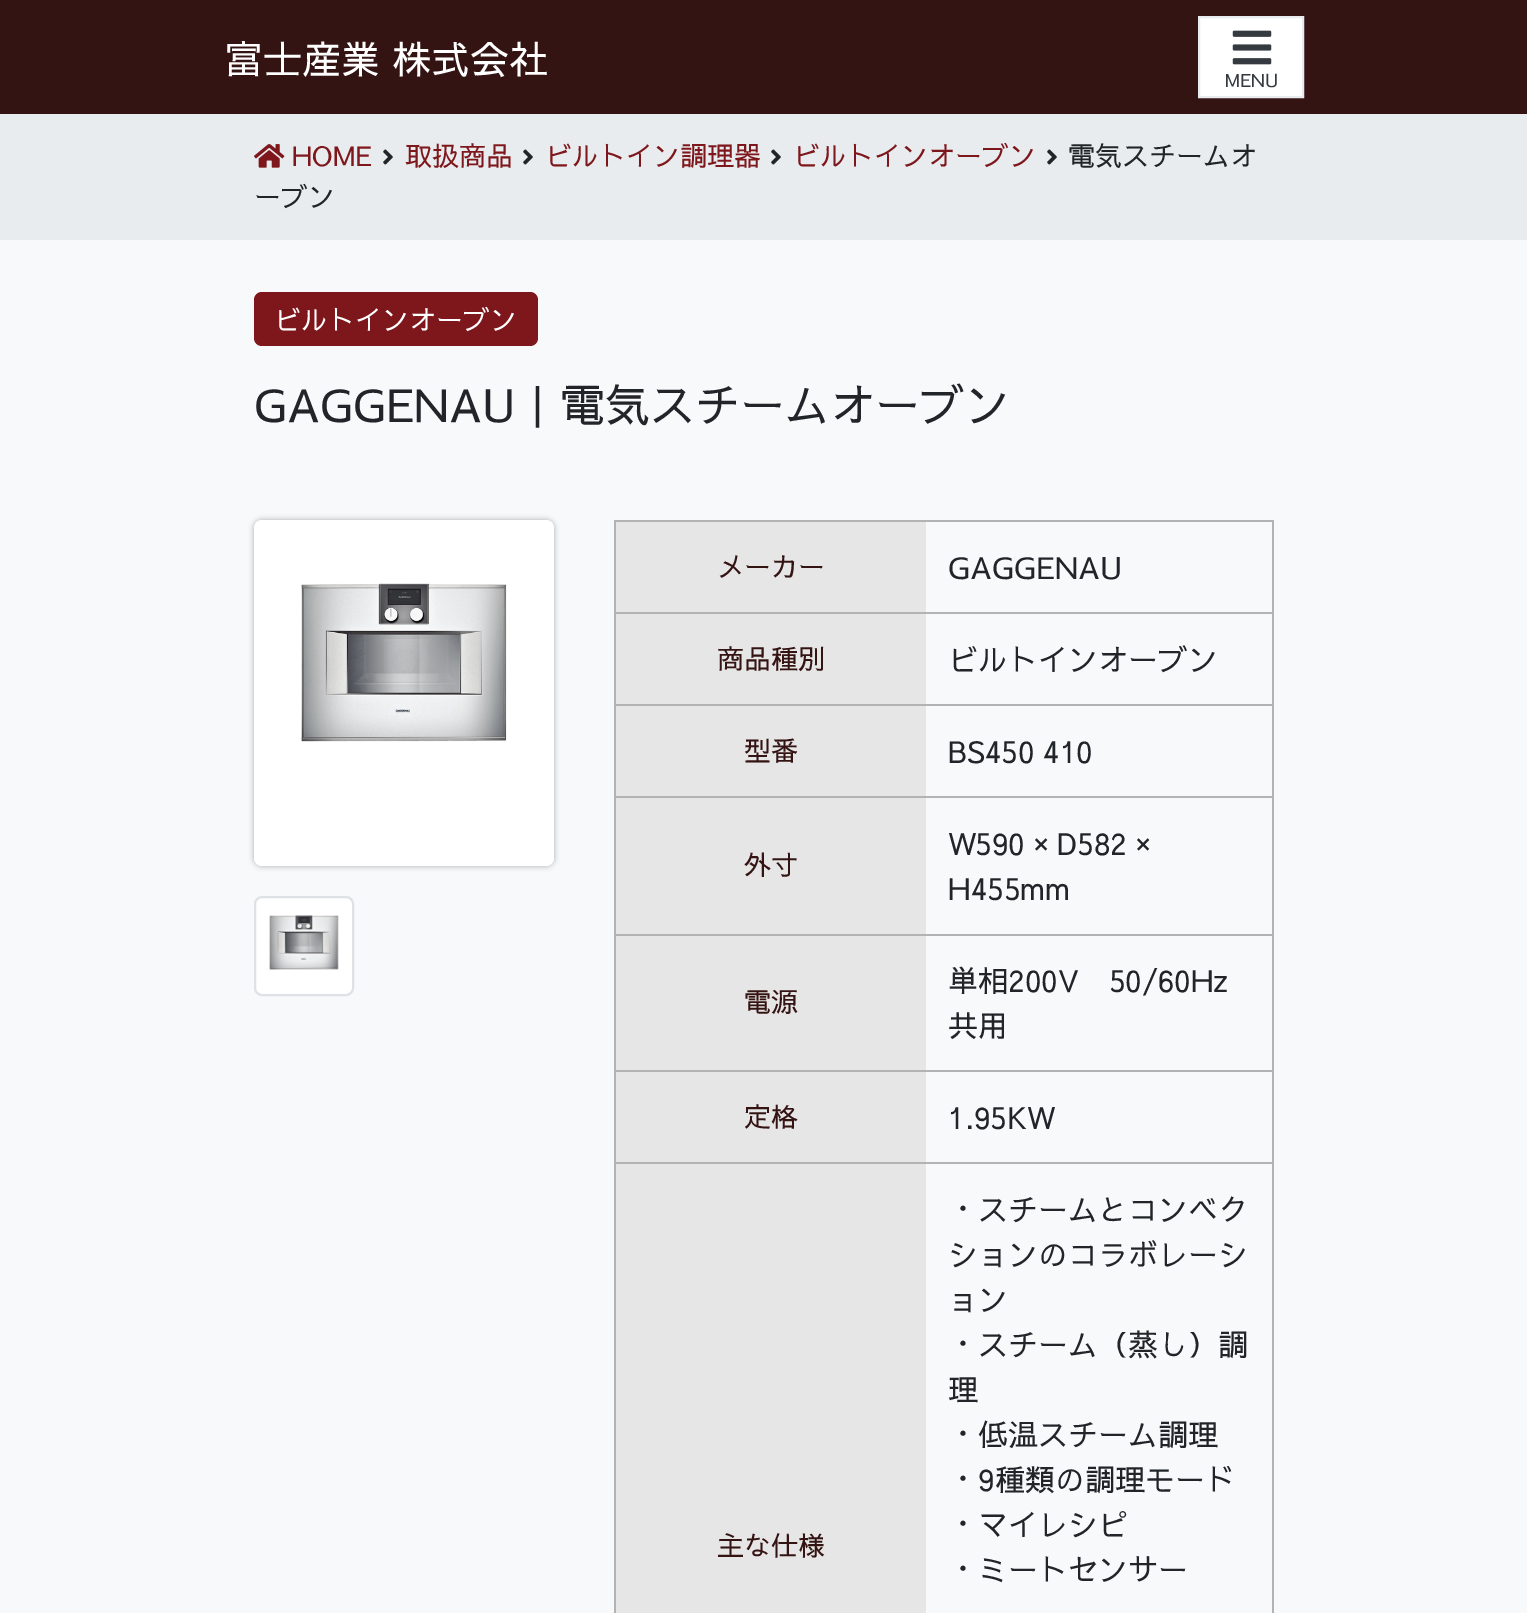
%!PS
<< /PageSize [1527 1613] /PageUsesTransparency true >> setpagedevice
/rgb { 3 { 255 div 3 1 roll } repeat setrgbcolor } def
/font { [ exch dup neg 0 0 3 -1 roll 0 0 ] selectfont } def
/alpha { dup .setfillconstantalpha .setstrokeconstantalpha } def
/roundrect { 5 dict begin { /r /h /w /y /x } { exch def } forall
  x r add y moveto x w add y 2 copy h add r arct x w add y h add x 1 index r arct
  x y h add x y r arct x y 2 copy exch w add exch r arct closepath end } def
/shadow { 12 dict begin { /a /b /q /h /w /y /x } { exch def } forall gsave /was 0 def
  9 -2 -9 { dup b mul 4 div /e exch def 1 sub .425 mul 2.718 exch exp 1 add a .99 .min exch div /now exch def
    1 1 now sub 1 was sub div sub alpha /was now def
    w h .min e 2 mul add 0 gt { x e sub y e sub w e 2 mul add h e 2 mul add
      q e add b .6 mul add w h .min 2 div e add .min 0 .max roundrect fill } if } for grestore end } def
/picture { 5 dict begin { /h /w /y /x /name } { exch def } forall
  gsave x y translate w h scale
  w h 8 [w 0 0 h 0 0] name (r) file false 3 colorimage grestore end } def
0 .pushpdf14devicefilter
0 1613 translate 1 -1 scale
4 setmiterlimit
248 249 250 rgb
0 0 1527 1613 rectfill
52 19 19 rgb
0 0 1527 114 rectfill
255 255 255 rgb
1199 17 moveto 1303 17 lineto 1303 97 lineto 1199 97 lineto closepath gsave fill grestore
233 236 239 rgb
2 setlinewidth
stroke
(img/1.rgb) 1232 30 40 35 picture
0 114 1527 126 rectfill
(img/2.rgb) 254 144 31 24 picture
(img/3.rgb) 383 149 10 16 picture
(img/3.rgb) 523 149 10 16 picture
(img/3.rgb) 771 149 10 16 picture
(img/3.rgb) 1047 149 10 16 picture
126 23 27 rgb
254 292 284 54 8 roundrect fill
52 58 64 rgb
254 520 300 346 8 3 0.4 shadow
255 255 255 rgb
254 520 300 346 8 roundrect fill
(img/4.rgb) 301 583 206 159 picture
255 897 98 98 7 roundrect gsave fill grestore
222 226 230 rgb
stroke
(img/5.rgb) 269 915 70 55 picture
[
  [616 522 310 90 230 230 230]
  [614 520 660 2 179 179 179]
  [614 612 660 2 179 179 179]
  [614 704 660 2 179 179 179]
  [614 796 660 2 179 179 179]
  [614 934 660 2 179 179 179]
  [614 1070 660 2 179 179 179]
  [614 1162 660 2 179 179 179]
  [614 1162 2 451 179 179 179]
  [614 1070 2 94 179 179 179]
  [614 934 2 138 179 179 179]
  [614 796 2 140 179 179 179]
  [614 704 2 94 179 179 179]
  [614 612 2 94 179 179 179]
  [614 520 2 94 179 179 179]
  [1272 1162 2 451 179 179 179]
  [1272 1070 2 94 179 179 179]
  [1272 934 2 138 179 179 179]
  [1272 796 2 140 179 179 179]
  [1272 704 2 94 179 179 179]
  [1272 612 2 94 179 179 179]
  [1272 520 2 94 179 179 179]
  [616 614 310 90 230 230 230]
  [616 706 310 90 230 230 230]
  [616 798 310 136 230 230 230]
  [616 936 310 134 230 230 230]
  [616 1072 310 90 230 230 230]
  [616 1164 310 449 230 230 230]
] { aload pop rgb rectfill } forall
/SawarabiGothic-Regular 39 font
255 255 255 rgb
224 74 moveto (富士産業 株式会社) show
/SawarabiGothic-Regular 18 font
52 58 64 rgb
1225 87 moveto (MENU) show
/SawarabiGothic-Regular 27 font
126 23 27 rgb
[
  [(HOME) 292 166]
  [(取扱商品) 405 166]
  [(ビルトイン調理器) 545 166]
  [(ビルトインオーブン) 793 166]
] { aload pop moveto show } forall
33 37 41 rgb
1068 166 moveto (電気スチームオ) show
254 207 moveto (ーブン) show
255 255 255 rgb
274 330 moveto (ビルトインオーブン) show
/SawarabiGothic-Regular 45 font
33 37 41 rgb
254 422 moveto (GAGGENAU｜電気スチームオーブン) show
/SawarabiGothic-Regular 27 font
52 19 19 rgb
717 577 moveto (メーカー) show
/SawarabiGothic-Regular 30 font
33 37 41 rgb
948 579 moveto (GAGGENAU) show
/SawarabiGothic-Regular 27 font
52 19 19 rgb
717 669 moveto (商品種別) show
/SawarabiGothic-Regular 30 font
33 37 41 rgb
948 671 moveto (ビルトインオーブン) show
/SawarabiGothic-Regular 27 font
52 19 19 rgb
744 761 moveto (型番) show
/SawarabiGothic-Regular 30 font
33 37 41 rgb
948 763 moveto (BS450 410) show
/SawarabiGothic-Regular 27 font
52 19 19 rgb
744 875 moveto (外寸) show
/SawarabiGothic-Regular 30 font
33 37 41 rgb
948 855 moveto (W590 × D582 ×) show
948 900 moveto (H455mm) show
/SawarabiGothic-Regular 27 font
52 19 19 rgb
744 1012 moveto (電源) show
/SawarabiGothic-Regular 30 font
33 37 41 rgb
948 992 moveto (単相200V　50/60Hz) show
948 1037 moveto (共用) show
/SawarabiGothic-Regular 27 font
52 19 19 rgb
744 1127 moveto (定格) show
/SawarabiGothic-Regular 30 font
33 37 41 rgb
948 1129 moveto (1.95KW) show
/SawarabiGothic-Regular 27 font
52 19 19 rgb
717 1556 moveto (主な仕様) show
/SawarabiGothic-Regular 30 font
33 37 41 rgb
[
  [(・スチームとコンベク) 948 1221]
  [(ションのコラボレーシ) 948 1266]
  [(ョン) 948 1311]
  [(・スチーム（蒸し）調) 948 1356]
  [(理) 948 1401]
  [(・低温スチーム調理) 948 1446]
  [(・9種類の調理モード) 948 1491]
  [(・マイレシピ) 948 1536]
  [(・ミートセンサー) 948 1581]
] { aload pop moveto show } forall
.poppdf14devicefilter showpage
